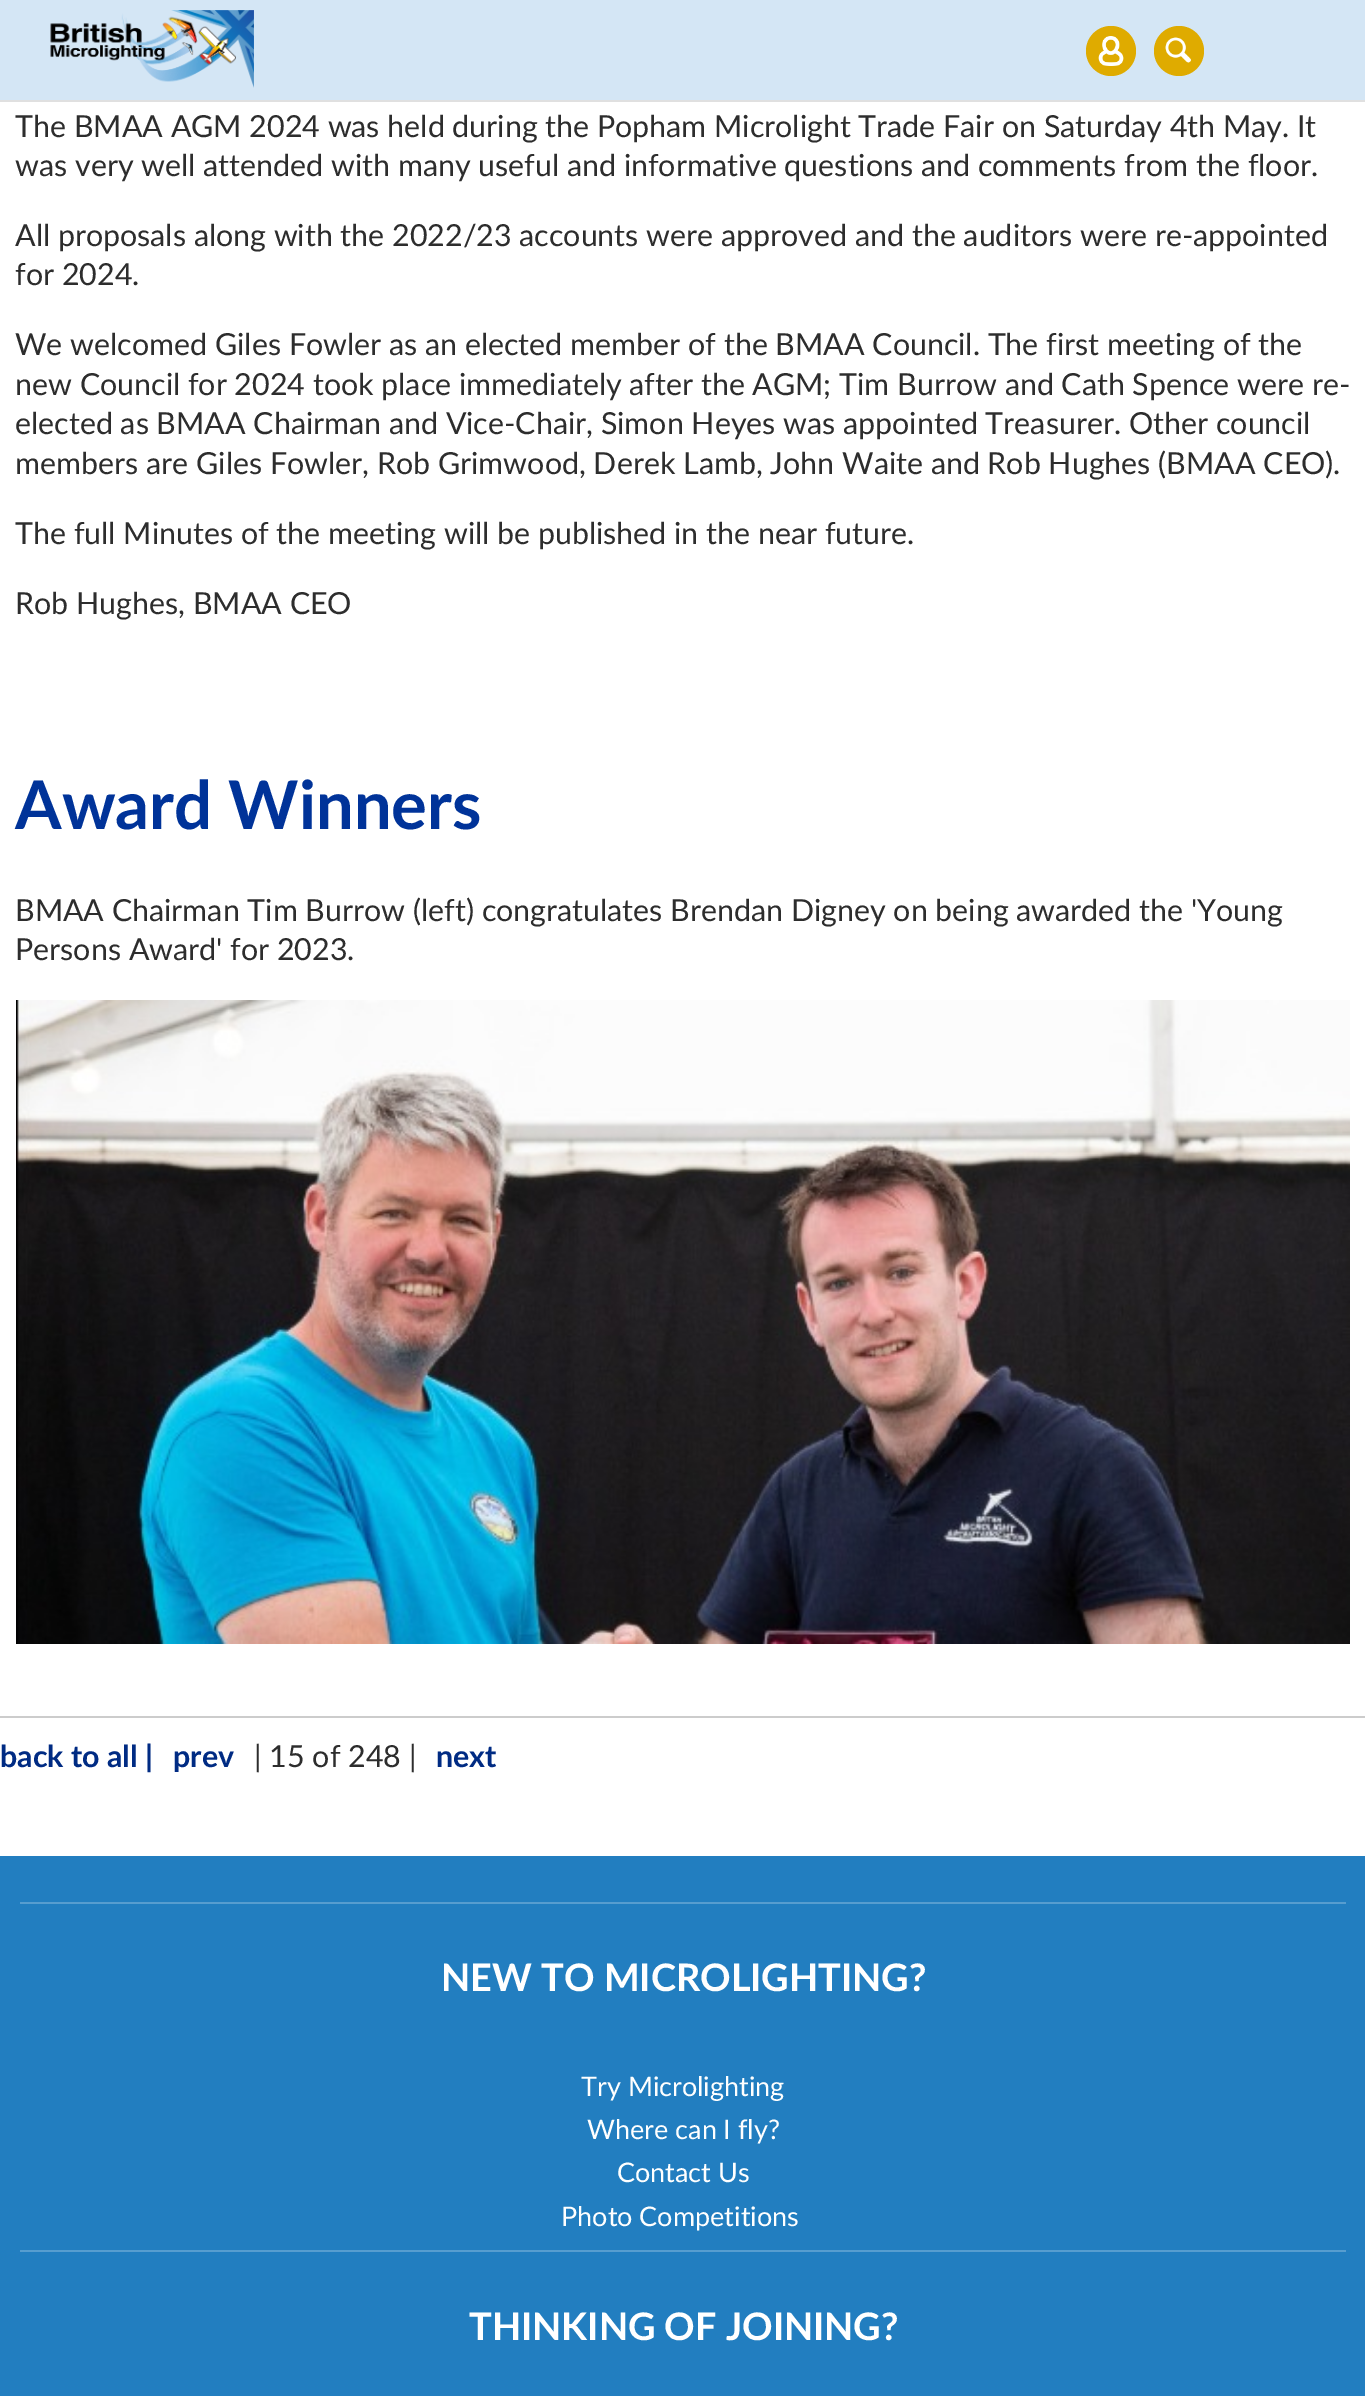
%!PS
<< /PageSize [1365 2396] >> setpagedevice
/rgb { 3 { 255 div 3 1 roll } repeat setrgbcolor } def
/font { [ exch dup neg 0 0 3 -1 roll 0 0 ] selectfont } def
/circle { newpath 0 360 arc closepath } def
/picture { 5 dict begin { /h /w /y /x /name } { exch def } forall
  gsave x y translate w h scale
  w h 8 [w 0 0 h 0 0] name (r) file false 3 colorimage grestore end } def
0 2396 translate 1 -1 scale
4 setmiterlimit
255 255 255 rgb
0 0 1365 2396 rectfill
212 230 245 rgb
0 0 1365 100 rectfill
(img/1.rgb) 50 10 204 78 picture
224 224 224 rgb
0 100 1365 2 rectfill
223 171 0 rgb
1111 51 25 circle fill
(img/2.rgb) 1098 36 26 30 picture
1179 51 25 circle fill
(img/3.rgb) 1165 37 26 26 picture
204 204 204 rgb
0 1716 1365 2 rectfill
(img/4.rgb) 16 1000 1334 644 picture
[
  [0 1856 1365 540 34 126 192]
  [20 1902 1326 2 87 157 207]
  [20 2250 1326 2 87 157 207]
] { aload pop rgb rectfill } forall
/Lato-Regular 30.4 font
45 45 45 rgb
[
  [(The BMAA AGM 2024 was held during the Popham Microlight Trade Fair on Saturday 4th May. It) 15 137]
  [(was very well attended with many useful and informative questions and comments from the floor.) 15 176]
  [(All proposals along with the 2022/23 accounts were approved and the auditors were re-appointed) 15 246]
  [(for 2024.) 15 285]
  [(We welcomed Giles Fowler as an elected member of the BMAA Council. The first meeting of the) 15 355]
  [(new Council for 2024 took place immediately after the AGM; Tim Burrow and Cath Spence were re-) 15 395]
  [(elected as BMAA Chairman and Vice-Chair, Simon Heyes was appointed Treasurer. Other council) 15 434]
  [(members are Giles Fowler, Rob Grimwood, Derek Lamb, John Waite and Rob Hughes \(BMAA CEO\).) 15 474]
  [(The full Minutes of the meeting will be published in the near future.) 15 544]
  [(Rob Hughes, BMAA CEO) 15 614]
] { aload pop moveto show } forall
/Lato-Bold 67 font
0 51 153 rgb
15 829 moveto (Award Winners) show
/Lato-Regular 30.4 font
45 45 45 rgb
15 921 moveto (BMAA Chairman Tim Burrow \(left\) congratulates Brendan Digney on being awarded the 'Young) show
15 960 moveto (Persons Award' for 2023.) show
/Lato-Bold 30.4 font
0 43 131 rgb
0 1767 moveto (back to all |) show
173 1767 moveto (prev) show
/Lato-Regular 30.4 font
45 45 45 rgb
254 1767 moveto (| 15 of 248 |) show
/Lato-Bold 30.4 font
0 43 131 rgb
436 1767 moveto (next) show
/Lato-Bold 37.9 font
255 255 255 rgb
441 1991 moveto (NEW TO MICROLIGHTING?) show
/Lato-Regular 27 font
[
  [(Try Microlighting) 581 2096]
  [(Where can I fly?) 587 2139]
  [(Contact Us) 617 2182]
  [(Photo Competitions) 561 2226]
] { aload pop moveto show } forall
/Lato-Bold 37.9 font
469 2340 moveto (THINKING OF JOINING?) show
showpage
